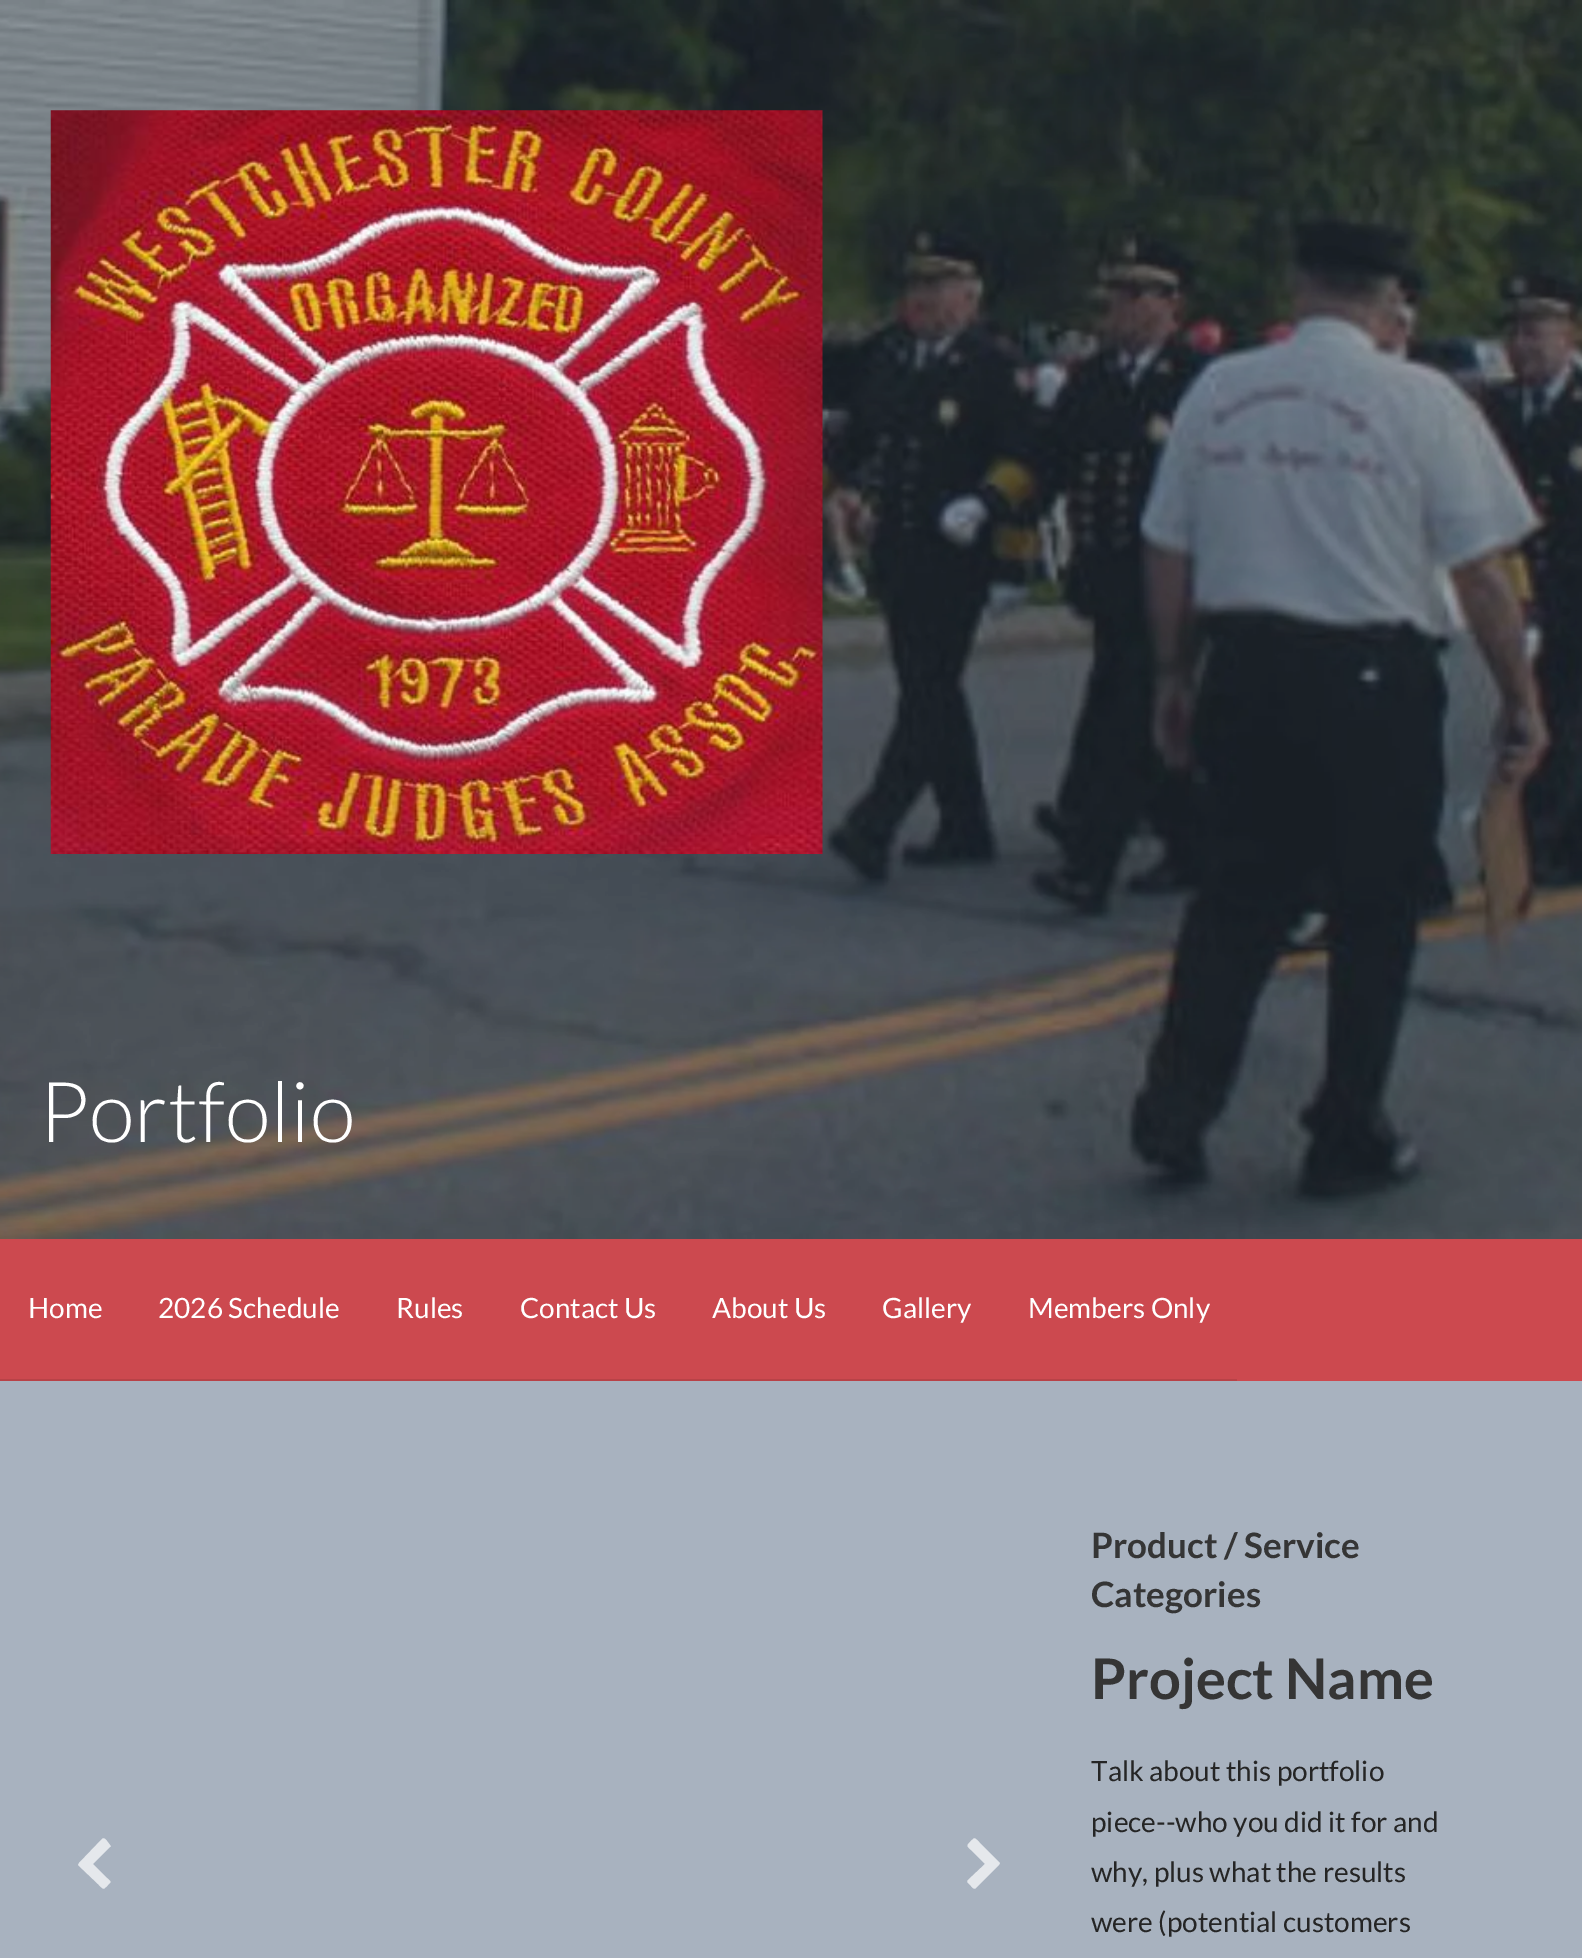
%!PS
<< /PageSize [1582 1958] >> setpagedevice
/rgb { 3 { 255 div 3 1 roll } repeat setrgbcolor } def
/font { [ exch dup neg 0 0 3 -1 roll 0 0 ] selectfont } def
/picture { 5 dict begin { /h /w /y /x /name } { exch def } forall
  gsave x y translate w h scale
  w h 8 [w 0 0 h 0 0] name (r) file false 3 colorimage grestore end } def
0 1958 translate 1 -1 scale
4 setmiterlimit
168 178 191 rgb
0 0 1582 1958 rectfill
(img/1.rgb) 0 0 1582 1239 picture
(img/2.rgb) 50 110 773 744 picture
204 73 79 rgb
0 1239 1582 142 rectfill
184 66 71 rgb
0 1379 1237 2 rectfill
229 232 236 rgb
110 1847 moveto 93 1864 lineto 107 1878 lineto 111 1882 112 1881 108 1885 curveto 103 1890 104 1890 98 1884 curveto 78 1865 lineto 79 1863 lineto 102 1839 lineto 104 1837 106 1840 107 1841 curveto 110 1845 lineto 111 1846 111 1847 110 1847 curveto closepath fill
968 1880 moveto 985 1864 lineto 971 1850 lineto 967 1846 966 1846 970 1842 curveto 975 1837 974 1837 980 1843 curveto 1000 1863 lineto 999 1865 lineto 976 1888 lineto 974 1890 972 1887 971 1886 curveto 968 1883 lineto 967 1882 967 1881 968 1880 curveto closepath fill
/Lato-Light 84 font
255 255 255 rgb
39 1142 moveto (Portfolio) show
/Lato-Regular 28 font
[
  [(Home) 28 1318]
  [(2026 Schedule) 158 1318]
  [(Rules) 396 1318]
  [(Contact Us) 520 1318]
  [(About Us) 712 1318]
  [(Gallery) 882 1318]
  [(Members Only) 1028 1318]
] { aload pop moveto show } forall
/Lato-Bold 35 font
53 53 53 rgb
1091 1558 moveto (Product / Service) show
1091 1607 moveto (Categories) show
/Lato-Bold 56 font
1091 1699 moveto (Project Name) show
/Lato-Regular 28 font
37 37 37 rgb
[
  [(Talk about this portfolio) 1091 1781]
  [(piece--who you did it for and) 1091 1832]
  [(why, plus what the results) 1091 1882]
  [(were \(potential customers) 1091 1932]
] { aload pop moveto show } forall
showpage
